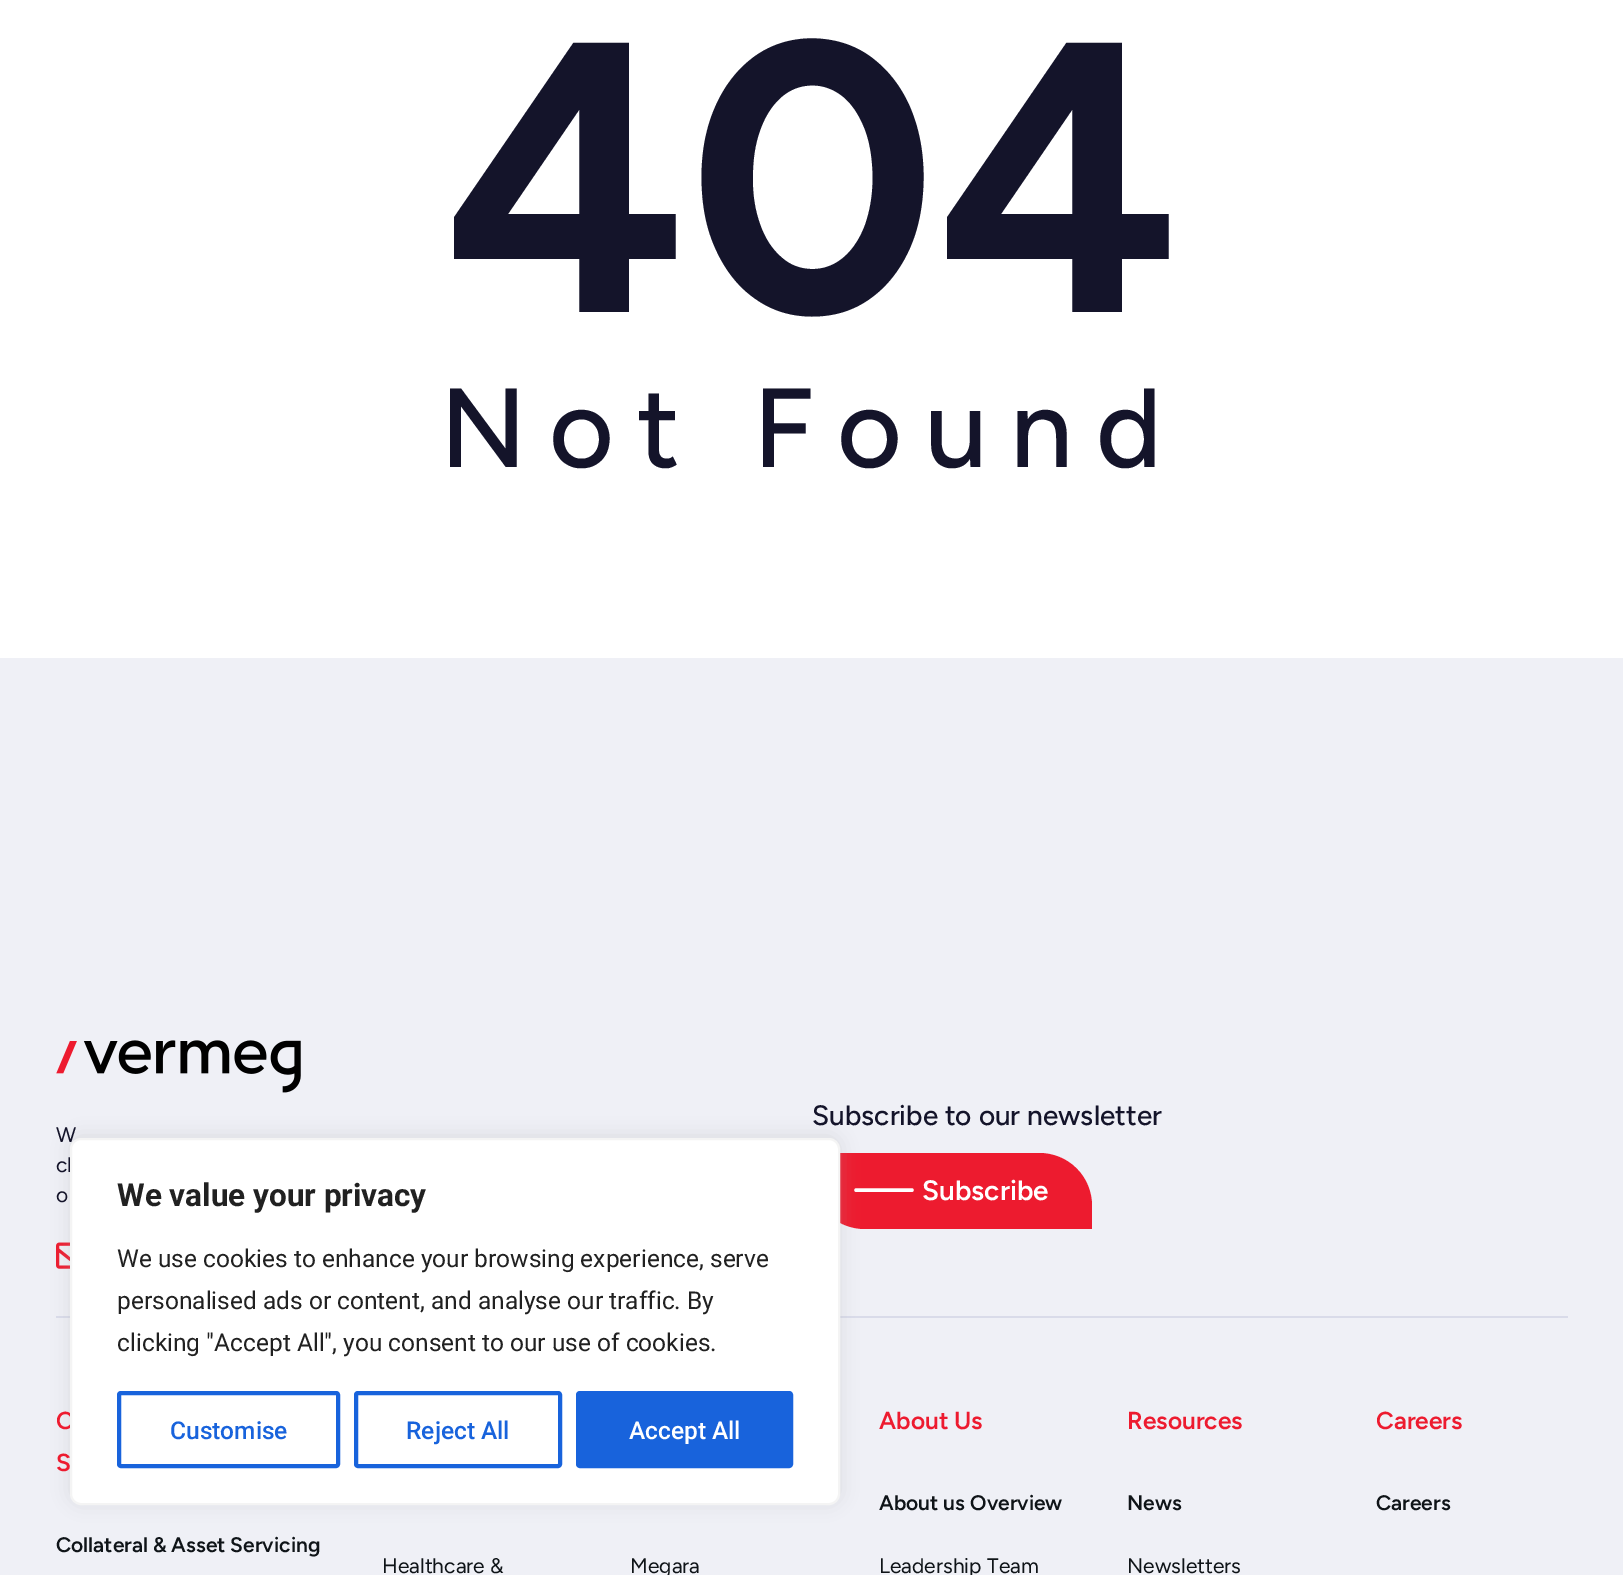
%!PS
<< /PageSize [1623 1575] /PageUsesTransparency true >> setpagedevice
/rgb { 3 { 255 div 3 1 roll } repeat setrgbcolor } def
/font { [ exch dup neg 0 0 3 -1 roll 0 0 ] selectfont } def
/alpha { dup .setfillconstantalpha .setstrokeconstantalpha } def
/roundrect { 5 dict begin { /r /h /w /y /x } { exch def } forall
  x r add y moveto x w add y 2 copy h add r arct x w add y h add x 1 index r arct
  x y h add x y r arct x y 2 copy exch w add exch r arct closepath end } def
/shadow { 12 dict begin { /a /b /q /h /w /y /x } { exch def } forall gsave /was 0 def
  9 -2 -9 { dup b mul 4 div /e exch def 1 sub .425 mul 2.718 exch exp 1 add a .99 .min exch div /now exch def
    1 1 now sub 1 was sub div sub alpha /was now def
    w h .min e 2 mul add 0 gt { x e sub y e sub w e 2 mul add h e 2 mul add
      q e add b .6 mul add w h .min 2 div e add .min 0 .max roundrect fill } if } for grestore end } def
/picture { 5 dict begin { /h /w /y /x /name } { exch def } forall
  gsave x y translate w h scale
  w h 8 [w 0 0 h 0 0] name (r) file false 3 colorimage grestore end } def
0 .pushpdf14devicefilter
0 1575 translate 1 -1 scale
4 setmiterlimit
255 255 255 rgb
0 0 1623 1575 rectfill
239 240 246 rgb
0 658 1623 917 rectfill
(img/1.rgb) 56 1040 245 53 picture
(img/2.rgb) 56 1242 14 27 picture
237 27 47 rgb
812 1153 moveto 1039 1153 lineto 1068.5 1153 1092 1176.5 1092 1206 curveto 1092 1229 lineto 865 1229 lineto 835.5 1229 812 1205.5 812 1176 curveto closepath fill
255 255 255 rgb
3.5 setlinewidth
1 setlinecap
856 1190 moveto 912 1190 lineto stroke
217 219 233 rgb
56 1316 1512 2 rectfill
172 171 171 rgb
70 1136 770 367 11 9 0.3 shadow
/Figtree-Bold 385 font
20 20 42 rgb
444 312 moveto (404) show
/Figtree-Medium 112 font
440 467 moveto 22.75 0 (Not Found) ashow
/Figtree-Regular 21 font
[
  [(W) 56 1142]
  [(cl) 56 1172]
  [(o) 56 1202]
] { aload pop moveto show } forall
/Figtree-Medium 28 font
812 1125 moveto (Subscribe to our newsletter) show
/Figtree-SemiBold 28 font
255 255 255 rgb
922 1200 moveto (Subscribe) show
/Figtree-SemiBold 24.5 font
237 27 47 rgb
56 1429 moveto (C) show
56 1471 moveto (S) show
/Figtree-SemiBold 21 font
15 20 24 rgb
56 1552 moveto (Collateral & Asset Servicing) show
/Figtree-SemiBold 24.5 font
237 27 47 rgb
879 1429 moveto (About Us) show
/Figtree-SemiBold 21 font
15 20 24 rgb
879 1510 moveto (About us Overview) show
/Figtree-Regular 21 font
879 1573 moveto (Leadership Team) show
/Figtree-SemiBold 24.5 font
237 27 47 rgb
1127 1429 moveto (Resources) show
/Figtree-SemiBold 21 font
15 20 24 rgb
1127 1510 moveto (News) show
/Figtree-Regular 21 font
1127 1573 moveto (Newsletters) show
/Figtree-SemiBold 24.5 font
237 27 47 rgb
1376 1429 moveto (Careers) show
/Figtree-SemiBold 21 font
15 20 24 rgb
1376 1510 moveto (Careers) show
/Figtree-Regular 21 font
382 1573 moveto (Healthcare &) show
630 1573 moveto (Megara) show
255 255 255 rgb
71 1139 768 365 10 roundrect gsave fill grestore
244 244 244 rgb
2 setlinewidth
0 setlinecap
stroke
/Roboto-Bold 31.5 font
33 33 33 rgb
117 1206 moveto (We value your privacy) show
/Roboto-Regular 24.5 font
[
  [(We use cookies to enhance your browsing experience, serve) 117 1267]
  [(personalised ads or content, and analyse our traffic. By) 117 1309]
  [(clicking "Accept All", you consent to our use of cookies.) 117 1351]
] { aload pop moveto show } forall
24 99 220 rgb
4 setlinewidth
119 1393 219 73 2 roundrect stroke
/Roboto-Medium 24.5 font
170 1439 moveto (Customise) show
356 1393 204 73 2 roundrect stroke
406 1439 moveto (Reject All) show
578 1393 213 73 2 roundrect gsave fill grestore
stroke
255 255 255 rgb
629 1439 moveto (Accept All) show
.poppdf14devicefilter showpage
